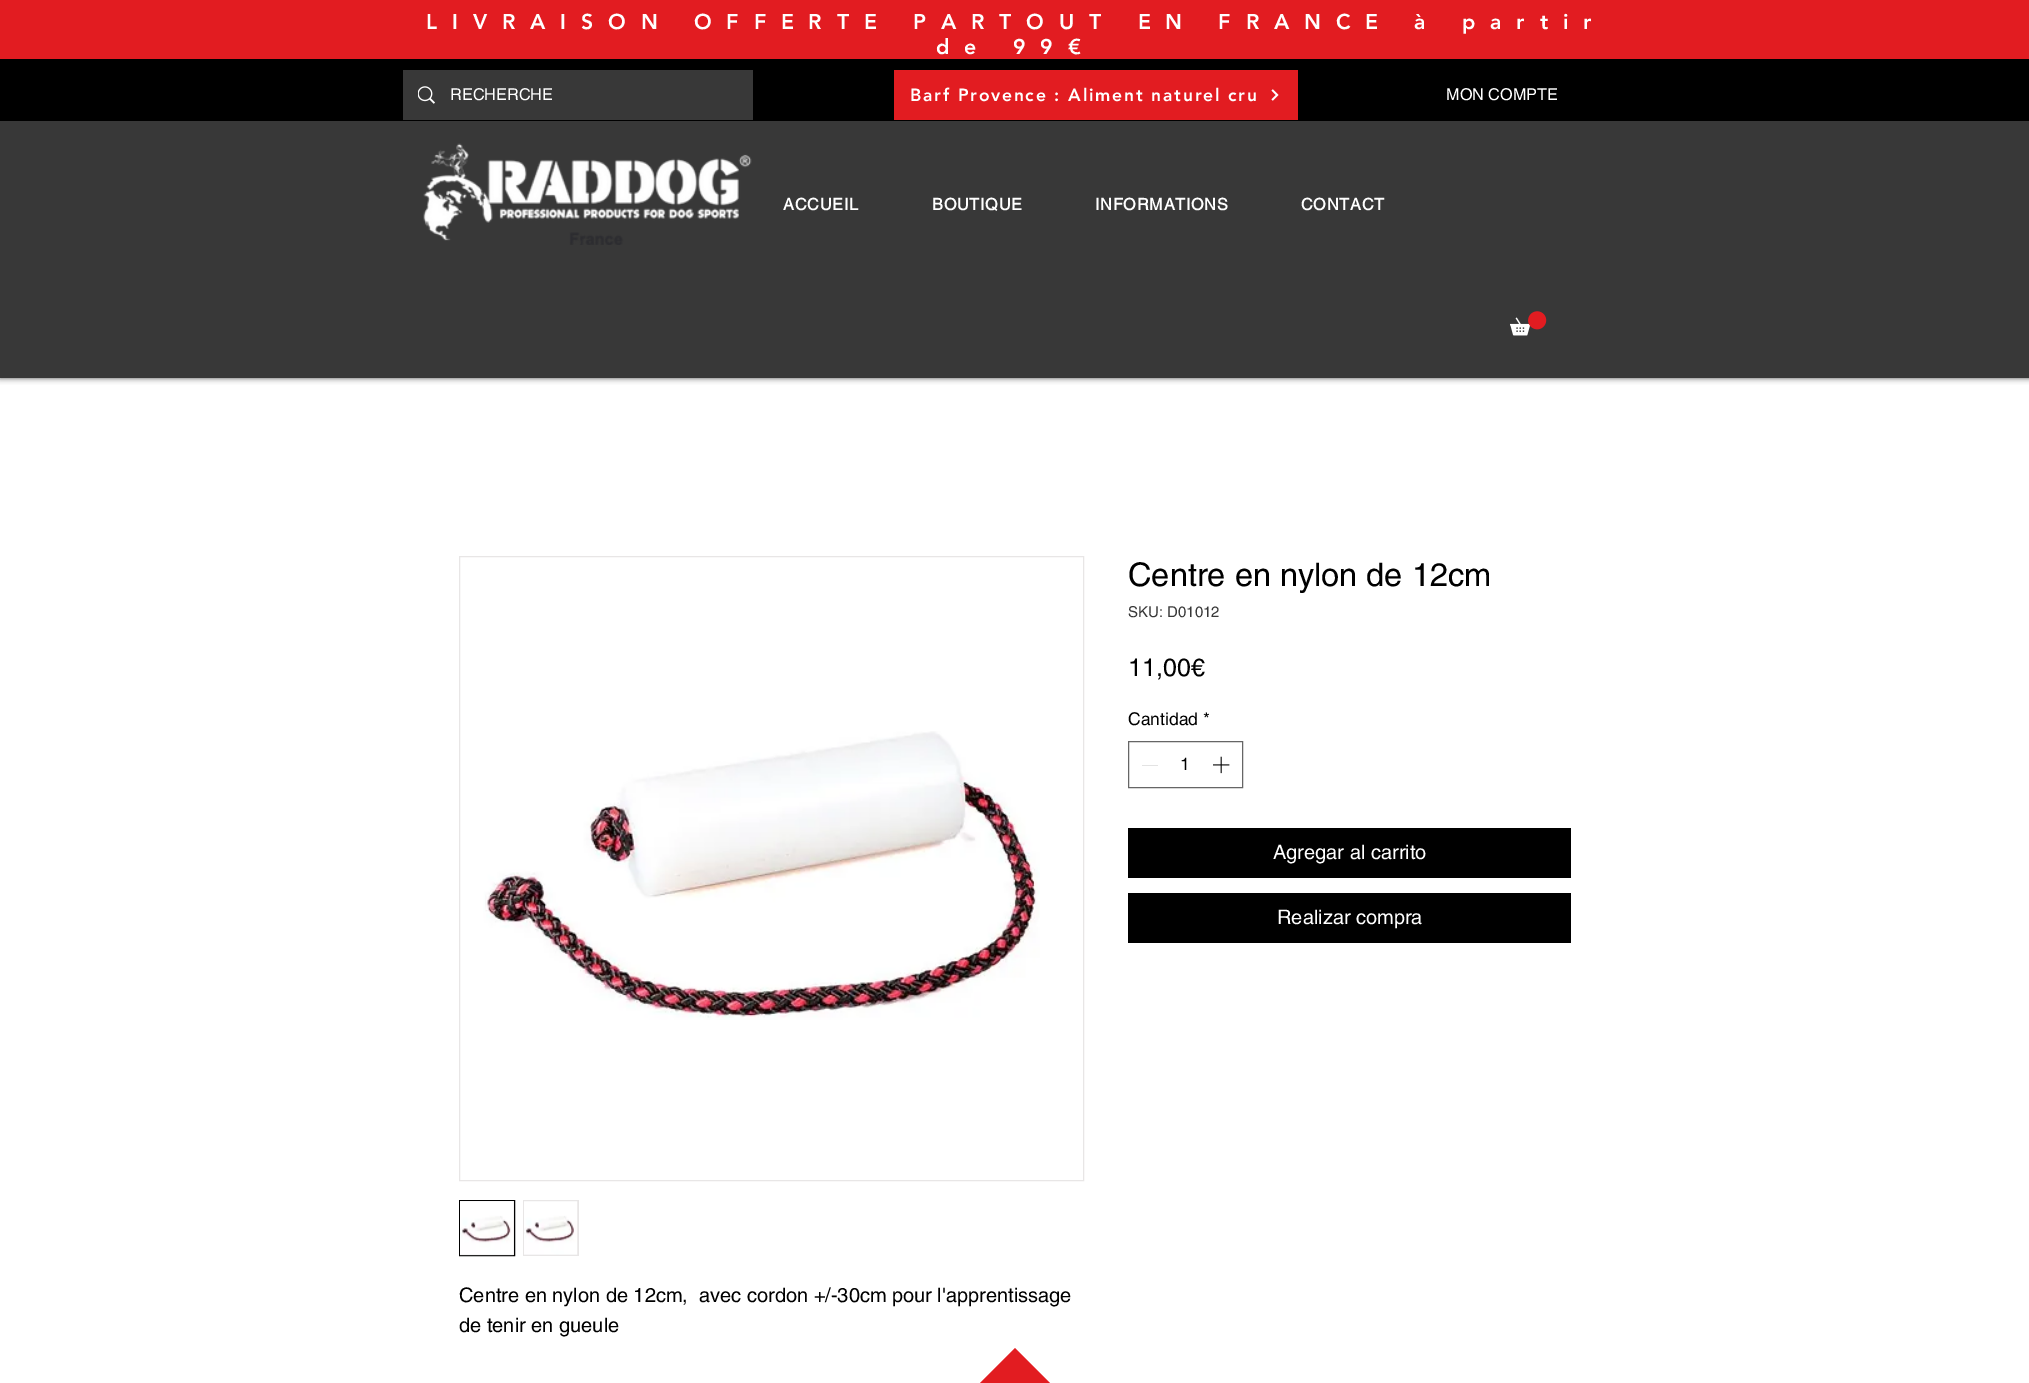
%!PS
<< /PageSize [2029 1383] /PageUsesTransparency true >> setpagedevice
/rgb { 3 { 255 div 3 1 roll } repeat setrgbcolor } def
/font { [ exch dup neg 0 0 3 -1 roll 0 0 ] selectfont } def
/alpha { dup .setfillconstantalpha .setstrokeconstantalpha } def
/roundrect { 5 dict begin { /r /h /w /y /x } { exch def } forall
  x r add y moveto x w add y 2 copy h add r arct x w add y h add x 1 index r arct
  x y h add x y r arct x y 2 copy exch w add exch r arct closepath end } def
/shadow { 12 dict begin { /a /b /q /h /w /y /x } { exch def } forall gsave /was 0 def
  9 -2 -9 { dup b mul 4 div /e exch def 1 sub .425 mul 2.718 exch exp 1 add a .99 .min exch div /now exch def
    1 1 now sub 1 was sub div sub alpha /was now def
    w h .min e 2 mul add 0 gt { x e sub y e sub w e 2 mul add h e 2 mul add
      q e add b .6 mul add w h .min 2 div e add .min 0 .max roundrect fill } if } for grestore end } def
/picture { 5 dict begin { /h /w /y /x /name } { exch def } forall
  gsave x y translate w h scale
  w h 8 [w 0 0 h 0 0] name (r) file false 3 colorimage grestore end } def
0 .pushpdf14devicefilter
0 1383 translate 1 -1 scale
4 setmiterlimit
255 255 255 rgb
0 0 2029 1383 rectfill
0 0 0 rgb
0 0 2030 378 0 3 0.7 shadow
[
  [0 121 2029 257 56 56 56]
  [0 0 2029 59 226 28 33]
  [0 59 2029 62 0 0 0]
  [403 70 350 50 56 56 56]
] { aload pop rgb rectfill } forall
(img/1.rgb) 418 86 17 18 picture
226 28 33 rgb
894 70 404 50 rectfill
(img/2.rgb) 1271 89 8 12 picture
(img/3.rgb) 423 143 329 102 picture
(img/4.rgb) 1510 311 37 25 picture
102 102 102 rgb
1128.5 741.5 114 46 rectstroke
227 227 227 rgb
1142 765 16 1 rectfill
(img/5.rgb) 1213 756 17 18 picture
0 0 0 rgb
1128 828 443 50 rectfill
1128 893 443 50 rectfill
232 230 230 rgb
459.5 556.5 624 624 rectstroke
(img/6.rgb) 483 731 557 289 picture
459.5 1200.5 moveto 514.5 1200.5 lineto 514.5 1255.5 lineto 459.5 1255.5 lineto closepath gsave fill grestore
0 0 0 rgb
stroke
(img/7.rgb) 460 1201 54 55 picture
232 230 230 rgb
523 1200 56 56 rectfill
(img/8.rgb) 524 1201 54 54 picture
226 28 33 rgb
1068 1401 moveto 1015 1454 lineto 962 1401 lineto 1015 1348 lineto closepath fill
/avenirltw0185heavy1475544-Black 21.25 font
255 255 255 rgb
426 29 moveto 14.9 0 (LIVRAISON OFFERTE PARTOUT EN FRANCE à partir) ashow
936 54 moveto 14.9 0 (de 99€) ashow
/helvetica-Regular 16.25 font
450 100 moveto (RECHERCHE) show
/avenirltw0185heavy1475544-Black 17.5 font
910 101 moveto 1.75 0 (Barf Provence : Aliment naturel cru) ashow
/helvetica-Regular 16.25 font
1446 100 moveto (MON COMPTE) show
/helvetica-Bold 16.25 font
783 210 moveto 0.75 0 (ACCUEIL) ashow
932 210 moveto 0.75 0 (BOUTIQUE) ashow
1095 210 moveto 0.75 0 (INFORMATIONS) ashow
1301 210 moveto 0.75 0 (CONTACT) ashow
/helvetica-Regular 32.5 font
0 0 0 rgb
1128 586 moveto (Centre en nylon de 12cm) show
/helvetica-Regular 15 font
56 56 56 rgb
1128 617 moveto (SKU: D01012) show
/helvetica-Regular 25 font
0 0 0 rgb
1128 676 moveto (11,00€) show
/helvetica-Regular 17.5 font
1128 725 moveto (Cantidad *) show
1180 770 moveto (1) show
/helvetica-Regular 20 font
255 255 255 rgb
1273 859 moveto (Agregar al carrito) show
1277 924 moveto (Realizar compra) show
0 0 0 rgb
459 1302 moveto (Centre en nylon de 12cm,  avec cordon +/-30cm pour l'apprentissage) show
459 1332 moveto (de tenir en gueule) show
.poppdf14devicefilter showpage
